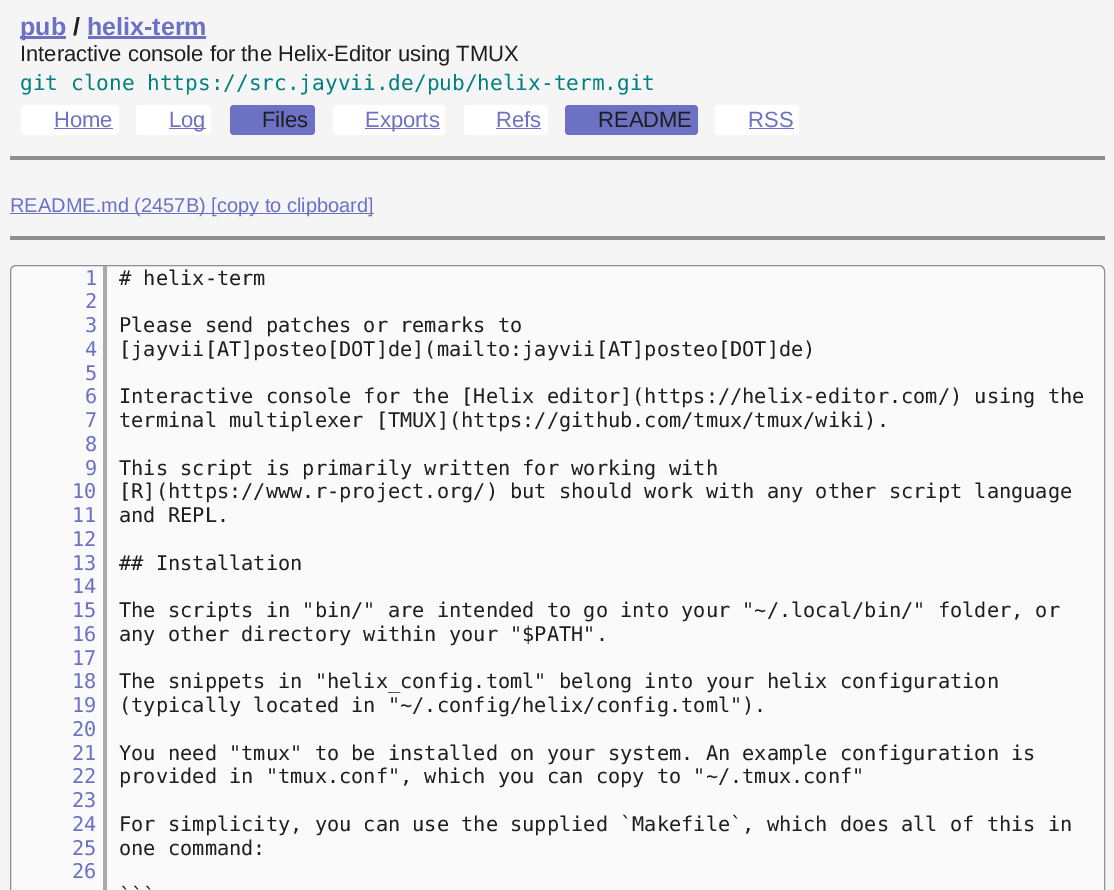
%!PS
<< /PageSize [1114 890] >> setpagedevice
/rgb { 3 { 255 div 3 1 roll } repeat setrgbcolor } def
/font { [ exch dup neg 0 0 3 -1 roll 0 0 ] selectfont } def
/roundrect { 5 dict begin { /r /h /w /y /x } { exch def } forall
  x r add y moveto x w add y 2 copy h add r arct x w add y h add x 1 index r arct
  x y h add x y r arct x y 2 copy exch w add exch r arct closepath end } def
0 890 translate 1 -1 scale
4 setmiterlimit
245 245 245 rgb
0 0 1114 890 rectfill
108 113 196 rgb
20 36 46 3 rectfill
88 36 118 3 rectfill
255 255 255 rgb
21 105 98 30 4 roundrect fill
108 113 196 rgb
54 128 59 1 rectfill
255 255 255 rgb
136 105 75 30 4 roundrect fill
108 113 196 rgb
169 128 37 1 rectfill
230 105 85 30 4 roundrect fill
255 255 255 rgb
333 105 112 30 4 roundrect fill
108 113 196 rgb
365 128 75 1 rectfill
255 255 255 rgb
464 105 84 30 4 roundrect fill
108 113 196 rgb
496 128 45 1 rectfill
565 105 133 30 4 roundrect fill
255 255 255 rgb
715 105 84 30 4 roundrect fill
[
  [749 128 45 1 108 113 196]
  [10 156 1095 4 141 142 143]
  [10 213 364 1 108 113 196]
  [10 236 1095 4 141 142 143]
] { aload pop rgb rectfill } forall
250 250 250 rgb
10.5 265.5 1094 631 5.5 roundrect gsave fill grestore
141 142 143 rgb
stroke
170 170 170 rgb
103 266 4 624 rectfill
/LiberationSans-Bold 25 font
108 113 196 rgb
20 35 moveto (pub) show
30 30 30 rgb
73 35 moveto (/) show
108 113 196 rgb
87 35 moveto (helix-term) show
/LiberationSans-Regular 22 font
30 30 30 rgb
20 61 moveto (Interactive console for the Helix-Editor using TMUX) show
/DejaVuSansMono-Regular 21.1 font
0 128 128 rgb
20 90 moveto (git clone https://src.jayvii.de/pub/helix-term.git) show
/LiberationSans-Regular 22 font
108 113 196 rgb
54 127 moveto (Home) show
169 127 moveto (Log) show
30 30 30 rgb
262 127 moveto (Files) show
108 113 196 rgb
365 127 moveto (Exports) show
496 127 moveto (Refs) show
30 30 30 rgb
598 127 moveto (README) show
108 113 196 rgb
748 127 moveto (RSS) show
/LiberationSans-Regular 20 font
10 212 moveto (README.md \(2457B\) [copy to clipboard]) show
/DejaVuSansMono-Regular 20.3 font
85 285 moveto (1) show
30 30 30 rgb
119 285 moveto (# helix-term) show
108 113 196 rgb
85 308 moveto (2) show
85 332 moveto (3) show
30 30 30 rgb
119 332 moveto (Please send patches or remarks to) show
108 113 196 rgb
85 356 moveto (4) show
30 30 30 rgb
119 356 moveto ([jayvii[AT]posteo[DOT]de]\(mailto:jayvii[AT]posteo[DOT]de\)) show
108 113 196 rgb
85 380 moveto (5) show
85 403 moveto (6) show
30 30 30 rgb
119 403 moveto (Interactive console for the [Helix editor]\(https://helix-editor.com/\) using the) show
108 113 196 rgb
85 427 moveto (7) show
30 30 30 rgb
119 427 moveto (terminal multiplexer [TMUX]\(https://github.com/tmux/tmux/wiki\).) show
108 113 196 rgb
85 451 moveto (8) show
85 475 moveto (9) show
30 30 30 rgb
119 475 moveto (This script is primarily written for working with) show
108 113 196 rgb
72 498 moveto (10) show
30 30 30 rgb
119 498 moveto ([R]\(https://www.r-project.org/\) but should work with any other script language) show
108 113 196 rgb
72 522 moveto (11) show
30 30 30 rgb
119 522 moveto (and REPL.) show
108 113 196 rgb
72 546 moveto (12) show
72 570 moveto (13) show
30 30 30 rgb
119 570 moveto (## Installation) show
108 113 196 rgb
72 593 moveto (14) show
72 617 moveto (15) show
30 30 30 rgb
119 617 moveto (The scripts in "bin/" are intended to go into your "~/.local/bin/" folder, or) show
108 113 196 rgb
72 641 moveto (16) show
30 30 30 rgb
119 641 moveto (any other directory within your "$PATH".) show
108 113 196 rgb
72 665 moveto (17) show
72 688 moveto (18) show
30 30 30 rgb
119 688 moveto (The snippets in "helix_config.toml" belong into your helix configuration) show
108 113 196 rgb
72 712 moveto (19) show
30 30 30 rgb
119 712 moveto (\(typically located in "~/.config/helix/config.toml"\).) show
108 113 196 rgb
72 736 moveto (20) show
72 760 moveto (21) show
30 30 30 rgb
119 760 moveto (You need "tmux" to be installed on your system. An example configuration is) show
108 113 196 rgb
72 783 moveto (22) show
30 30 30 rgb
119 783 moveto (provided in "tmux.conf", which you can copy to "~/.tmux.conf") show
108 113 196 rgb
72 807 moveto (23) show
72 831 moveto (24) show
30 30 30 rgb
119 831 moveto (For simplicity, you can use the supplied `Makefile`, which does all of this in) show
108 113 196 rgb
72 855 moveto (25) show
30 30 30 rgb
119 855 moveto (one command:) show
108 113 196 rgb
72 878 moveto (26) show
30 30 30 rgb
119 902 moveto (```) show
showpage
